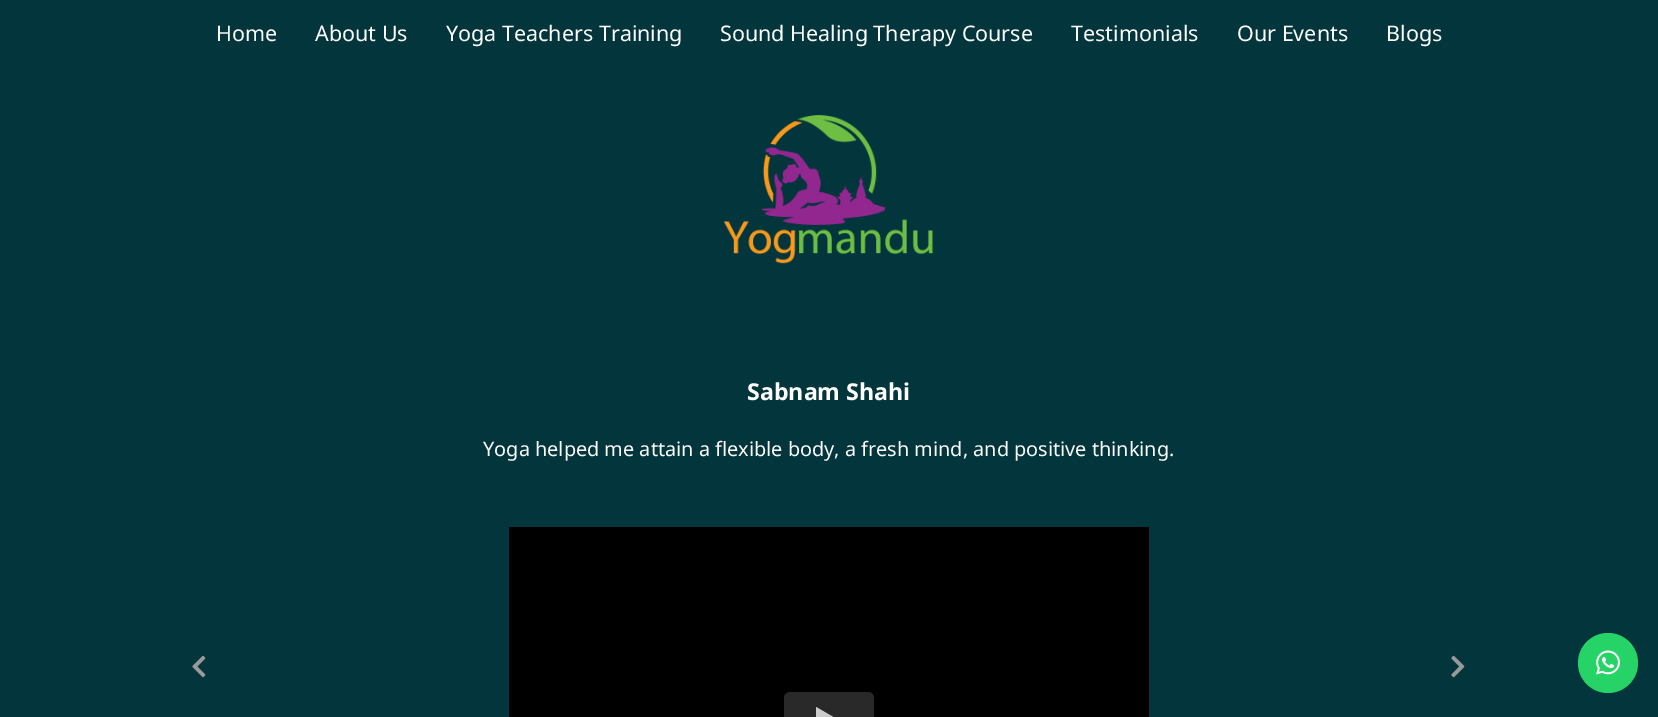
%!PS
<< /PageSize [1658 717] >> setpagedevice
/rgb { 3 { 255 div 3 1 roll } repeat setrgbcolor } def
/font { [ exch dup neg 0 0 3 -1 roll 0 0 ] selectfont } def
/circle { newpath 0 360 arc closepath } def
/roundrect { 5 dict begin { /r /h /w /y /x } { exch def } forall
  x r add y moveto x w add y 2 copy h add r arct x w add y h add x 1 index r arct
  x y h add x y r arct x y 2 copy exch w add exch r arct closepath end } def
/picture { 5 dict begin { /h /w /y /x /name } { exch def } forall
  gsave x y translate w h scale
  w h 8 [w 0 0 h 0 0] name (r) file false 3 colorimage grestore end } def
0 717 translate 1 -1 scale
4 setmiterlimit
2 53 60 rgb
0 0 1658 717 rectfill
(img/1.rgb) 724 115 210 149 picture
0 0 0 rgb
509 527 640 190 rectfill
41 41 41 rgb
784 692 90 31 6 roundrect fill
204 204 204 rgb
816 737 moveto 816 707 lineto 842 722 lineto closepath fill
(img/2.rgb) 192 655 14 23 picture
(img/3.rgb) 1451 655 14 23 picture
37 211 102 rgb
1608 663 30 circle fill
(img/4.rgb) 1596 650 24 25 picture
/NotoSans-Regular 21.5 font
255 255 255 rgb
[
  [(Home) 216 41]
  [(About Us) 315 41]
  [(Yoga Teachers Training) 446 41]
  [(Sound Healing Therapy Course) 720 41]
  [(Testimonials) 1071 41]
  [(Our Events) 1237 41]
  [(Blogs) 1386 41]
] { aload pop moveto show } forall
/NotoSans-Bold 23.25 font
747 400 moveto (Sabnam Shahi) show
/NotoSans-Regular 19.9 font
483 456 moveto (Yoga helped me attain a flexible body, a fresh mind, and positive thinking.) show
showpage
